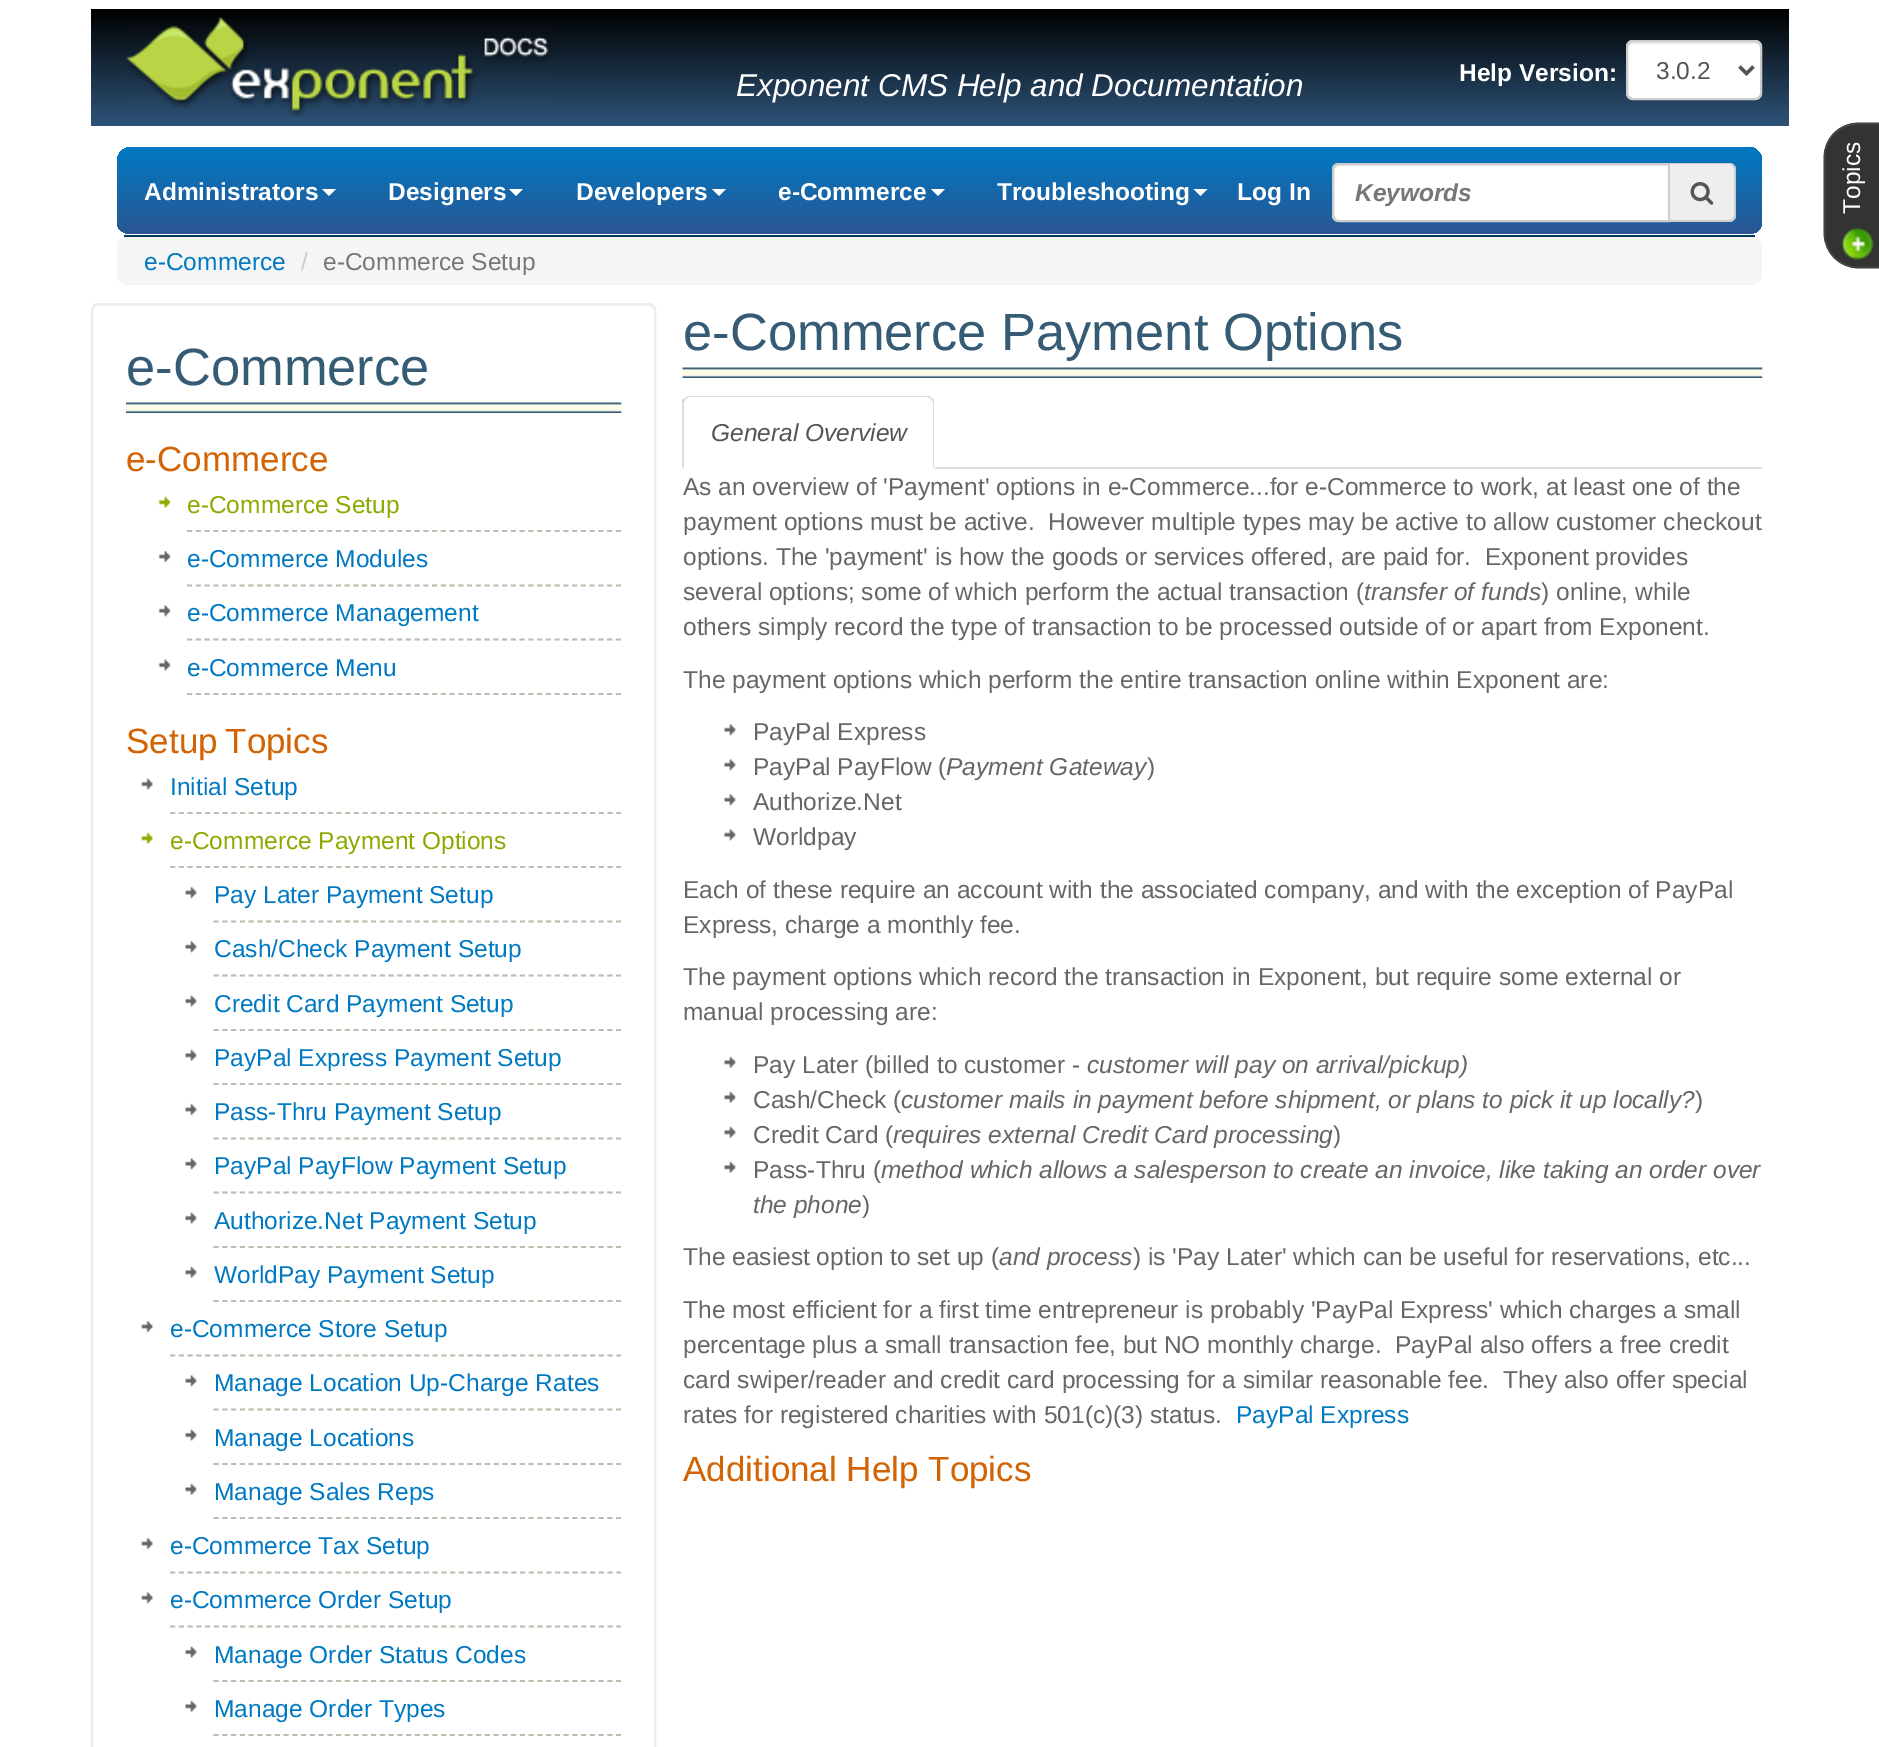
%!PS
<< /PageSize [1879 1747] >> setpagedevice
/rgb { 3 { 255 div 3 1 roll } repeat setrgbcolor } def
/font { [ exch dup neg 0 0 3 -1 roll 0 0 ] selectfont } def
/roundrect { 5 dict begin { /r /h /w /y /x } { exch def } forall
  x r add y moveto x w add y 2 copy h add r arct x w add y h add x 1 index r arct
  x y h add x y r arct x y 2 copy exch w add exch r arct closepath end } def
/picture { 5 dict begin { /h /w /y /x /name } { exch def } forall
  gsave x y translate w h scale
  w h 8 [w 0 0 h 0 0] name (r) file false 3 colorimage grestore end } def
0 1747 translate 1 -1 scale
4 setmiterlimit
255 255 255 rgb
0 0 1879 1747 rectfill
gsave 91 9 moveto 1789 9 lineto 1789 126 lineto 91 126 lineto closepath clip newpath
<< /ShadingType 2 /ColorSpace /DeviceRGB /Coords [940 9 940 126] /Extend [true true] /Function << /FunctionType 2 /Domain [0 1] /C0 [0 0 0] /C1 [0.18 0.329 0.475] /N 1 >> >> shfill grestore
(img/1.rgb) 125 17 427 100 picture
1626 40 136 60 7 roundrect fill
236 236 236 rgb
1633 44 moveto 1755 44 lineto 1758 44 1760 46 1760 49 curveto 1760 94 lineto 1760 97 lineto 1760 96 1761 94 1761 93 curveto 1761 47 lineto 1761 44 1759 42 1756 42 curveto 1633 42 lineto 1630 42 1628 44 1628 47 curveto 1628 49 lineto 1628 46 1630 44 1633 44 curveto closepath fill
204 204 204 rgb
2 setlinewidth
1627 41 134 58 6 roundrect stroke
85 85 85 rgb
3.5 setlinewidth
1739.5 66.5 moveto 1746.5 73.5 lineto 1753.5 66.5 lineto stroke
51 51 51 rgb
1824 233 moveto 1824 158 lineto 1824 138 1839 123 1859 123 curveto 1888 123 lineto 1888 268 lineto 1859 268 lineto 1839 268 1824 252 1824 233 curveto closepath fill
(img/2.rgb) 1841 227 33 33 picture
68 68 68 rgb
1.8 setlinewidth
1824.5 233 moveto 1824.5 157.5 lineto 1824.5 138.5 1839.5 123.5 1858.5 123.5 curveto 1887.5 123.5 lineto 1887.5 267.5 lineto 1858.5 267.5 lineto 1839.5 267.5 1824.5 252 1824.5 233 curveto closepath stroke
245 245 245 rgb
117 236 1645 49 11 roundrect fill
242 242 242 rgb
98 306 moveto 649 306 lineto 652 306 654 309 654 312 curveto 654 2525 lineto 655 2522 lineto 655 310 lineto 655 307 653 305 650 305 curveto 98 305 lineto 94 305 93 309 93 312 curveto 93 309 95 306 98 306 curveto closepath fill
237 237 237 rgb
2 setlinewidth
92 304 563 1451 6 roundrect stroke
(img/3.rgb) 126 402 496 11 picture
(img/4.rgb) 158 496 13 12 picture
189 189 175 rgb
1.8 setlinewidth
[5.25 3.5] 0 setdash
187 531 moveto 621 531 lineto stroke
(img/5.rgb) 158 550 13 13 picture
187 585.5 moveto 621 585.5 lineto stroke
(img/6.rgb) 158 605 13 12 picture
187 639.5 moveto 621 639.5 lineto stroke
(img/7.rgb) 158 659 13 12 picture
187 694 moveto 621 694 lineto stroke
(img/8.rgb) 141 778 12 12 picture
170 813 moveto 621 813 lineto stroke
(img/9.rgb) 141 832 12 12 picture
170 867 moveto 621 867 lineto stroke
(img/10.rgb) 185 886 12 13 picture
213.5 921.5 moveto 621 921.5 lineto stroke
(img/11.rgb) 185 941 12 12 picture
213.5 975.5 moveto 621 975.5 lineto stroke
(img/12.rgb) 185 995 12 12 picture
213.5 1030 moveto 621 1030 lineto stroke
(img/13.rgb) 185 1049 12 12 picture
213.5 1084 moveto 621 1084 lineto stroke
(img/10.rgb) 185 1103 12 13 picture
213.5 1138.5 moveto 621 1138.5 lineto stroke
(img/11.rgb) 185 1158 12 12 picture
213.5 1192.5 moveto 621 1192.5 lineto stroke
(img/12.rgb) 185 1212 12 12 picture
213.5 1247 moveto 621 1247 lineto stroke
(img/13.rgb) 185 1266 12 12 picture
213.5 1301 moveto 621 1301 lineto stroke
(img/14.rgb) 141 1320 12 13 picture
170 1355.5 moveto 621 1355.5 lineto stroke
(img/11.rgb) 185 1375 12 12 picture
213.5 1409.5 moveto 621 1409.5 lineto stroke
(img/12.rgb) 185 1429 12 12 picture
213.5 1464 moveto 621 1464 lineto stroke
(img/13.rgb) 185 1483 12 12 picture
213.5 1518 moveto 621 1518 lineto stroke
(img/14.rgb) 141 1537 12 13 picture
170 1572.5 moveto 621 1572.5 lineto stroke
(img/15.rgb) 141 1592 12 12 picture
170 1626.5 moveto 621 1626.5 lineto stroke
(img/12.rgb) 185 1646 12 12 picture
213.5 1681 moveto 621 1681 lineto stroke
(img/13.rgb) 185 1700 12 12 picture
213.5 1735 moveto 621 1735 lineto stroke
(img/16.rgb) 682 367 1081 11 picture
221 221 221 rgb
935 467 827 2 rectfill
690 396 moveto 688 396 686 397 685 398 curveto 686 399 lineto 689 397 lineto 928 397 lineto 931 399 lineto 932 398 lineto 931 397 930 396 928 396 curveto closepath fill
934 468 moveto 934 402 lineto 934 400 933 399 932 398 curveto 931 399 lineto 933 402 lineto 933 467 lineto 932 467 lineto closepath fill
682 469 moveto 684 467 lineto 684 402 lineto 686 399 lineto 685 398 lineto 682 400 lineto closepath fill
(img/11.rgb) 724 724 12 12 picture
(img/11.rgb) 724 759 12 12 picture
(img/11.rgb) 724 794 12 12 picture
(img/11.rgb) 724 829 12 12 picture
(img/13.rgb) 724 1056 12 12 picture
(img/13.rgb) 724 1091 12 12 picture
(img/13.rgb) 724 1126 12 12 picture
(img/13.rgb) 724 1161 12 12 picture
gsave 131 147 moveto 1748 147 lineto 1756 147 1762 153 1762 161 curveto 1762 222 lineto 1762 229 1756 234 1748 234 curveto 131 234 lineto 124 234 117 229 117 222 curveto 117 161 lineto 117 153 124 147 131 147 curveto closepath clip newpath
<< /ShadingType 2 /ColorSpace /DeviceRGB /Coords [940 147 940 235] /Extend [true true] /Function << /FunctionType 2 /Domain [0 1] /C0 [0 0.475 0.761] /C1 [0.165 0.337 0.576] /N 1 >> >> shfill grestore
0 57 92 rgb
124 235 1631 2 rectfill
255 255 255 rgb
322 189 moveto 336 189 lineto 329 196 lineto closepath fill
509 189 moveto 523 189 lineto 516 196 lineto closepath fill
712 189 moveto 726 189 lineto 719 196 lineto closepath fill
931 189 moveto 945 189 lineto 938 196 lineto closepath fill
1193.5 189 moveto 1207.5 189 lineto 1200.5 196 lineto closepath fill
1339 163 moveto 1670 163 lineto 1670 222 lineto 1339 222 lineto 1335 222 1332 219 1332 215 curveto 1332 170 lineto 1332 166 1335 163 1339 163 curveto closepath fill
236 236 236 rgb
1339 166 moveto 1668 166 lineto 1668 165 lineto 1339 165 lineto 1336 165 1334 167 1334 170 curveto 1334 172 lineto 1334 169 1336 166 1339 166 curveto closepath fill
204 204 204 rgb
2 setlinewidth
[] 0 setdash
1339 164 moveto 1669 164 lineto 1669 221 lineto 1339 221 lineto 1335.5 221 1333 218.5 1333 215 curveto 1333 170 lineto 1333 166.5 1335.5 164 1339 164 curveto closepath stroke
238 238 238 rgb
1670 163 moveto 1729 163 lineto 1733 163 1736 166 1736 170 curveto 1736 215 lineto 1736 219 1733 222 1729 222 curveto 1670 222 lineto closepath fill
204 204 204 rgb
1670 163 moveto 1729 163 lineto 1733 163 1736 166 1736 170 curveto 1736 215 lineto 1736 219 1733 222 1729 222 curveto 1670 222 lineto closepath 1670 164 moveto 1729 164 lineto 1732 164 1734 167 1734 170 curveto 1734 215 lineto 1734 218 1732 220 1729 220 curveto 1670 220 lineto closepath eofill
(img/17.rgb) 1690 182 24 23 picture
/LiberationSans-Italic 31.5 font
255 255 255 rgb
736 96 moveto (Exponent CMS Help and Documentation) show
/LiberationSans-Bold 24.5 font
1459 81 moveto (Help Version:) show
/LiberationSans-Regular 24.5 font
85 85 85 rgb
1656 79 moveto (3.0.2) show
255 255 255 rgb
gsave 1860 214 translate -90 rotate 0 0 moveto (Topics) show grestore
0 121 194 rgb
144 270 moveto (e-Commerce) show
204 204 204 rgb
301 270 moveto (/) show
119 119 119 rgb
323 270 moveto (e-Commerce Setup) show
/LiberationSans-Regular 52.5 font
53 91 117 rgb
126 385 moveto (e-Commerce) show
/LiberationSans-Regular 35 font
211 99 3 rgb
126 471 moveto (e-Commerce) show
/LiberationSans-Regular 24.5 font
137 171 0 rgb
187 513 moveto (e-Commerce Setup) show
0 121 194 rgb
[
  [(e-Commerce Modules) 187 567]
  [(e-Commerce Management) 187 621]
  [(e-Commerce Menu) 187 676]
] { aload pop moveto show } forall
/LiberationSans-Regular 35 font
211 99 3 rgb
126 753 moveto -2 0 32 (Setup Topics) widthshow
/LiberationSans-Regular 24.5 font
0 121 194 rgb
170 795 moveto (Initial Setup) show
137 171 0 rgb
170 849 moveto (e-Commerce Payment Options) show
0 121 194 rgb
[
  [(Pay Later Payment Setup) 214 903]
  [(Cash/Check Payment Setup) 214 957]
  [(Credit Card Payment Setup) 214 1012]
  [(PayPal Express Payment Setup) 214 1066]
  [(Pass-Thru Payment Setup) 214 1120]
  [(PayPal PayFlow Payment Setup) 214 1174]
  [(Authorize.Net Payment Setup) 214 1229]
  [(WorldPay Payment Setup) 214 1283]
  [(e-Commerce Store Setup) 170 1337]
  [(Manage Location Up-Charge Rates) 214 1391]
  [(Manage Locations) 214 1446]
  [(Manage Sales Reps) 214 1500]
  [(e-Commerce Tax Setup) 170 1554]
  [(e-Commerce Order Setup) 170 1608]
  [(Manage Order Status Codes) 214 1663]
  [(Manage Order Types) 214 1717]
] { aload pop moveto show } forall
/LiberationSans-Regular 52.5 font
53 91 117 rgb
683 350 moveto (e-Commerce Payment Options) show
/LiberationSans-Italic 24.5 font
85 85 85 rgb
711 441 moveto (General Overview) show
/LiberationSans-Regular 24.5 font
102 102 102 rgb
[
  [(As an overview of 'Payment' options in e-Commerce...for e-Commerce to work, at least one of the) 683 495]
  [(payment options must be active.  However multiple types may be active to allow customer checkout) 683 530]
  [(options. The 'payment' is how the goods or services offered, are paid for.  Exponent provides) 683 565]
  [(several options; some of which perform the actual transaction \() 683 600]
] { aload pop moveto show } forall
/LiberationSans-Italic 24.5 font
1364 600 moveto (transfer of funds) show
/LiberationSans-Regular 24.5 font
[
  [(\) online, while) 1541 600]
  [(others simply record the type of transaction to be processed outside of or apart from Exponent.) 683 635]
  [(The payment options which perform the entire transaction online within Exponent are:) 683 688]
  [(PayPal Express) 753 740]
  [(PayPal PayFlow \() 753 775]
] { aload pop moveto show } forall
/LiberationSans-Italic 24.5 font
946 775 moveto (Payment Gateway) show
/LiberationSans-Regular 24.5 font
[
  [(\)) 1147 775]
  [(Authorize.Net) 753 810]
  [(Worldpay) 753 845]
  [(Each of these require an account with the associated company, and with the exception of PayPal) 683 898]
  [(Express, charge a monthly fee.) 683 933]
  [(The payment options which record the transaction in Exponent, but require some external or) 683 985]
  [(manual processing are:) 683 1020]
  [(Pay Later \(billed to customer -) 753 1073]
] { aload pop moveto show } forall
/LiberationSans-Italic 24.5 font
1087 1073 moveto (customer will pay on arrival/pickup\)) show
/LiberationSans-Regular 24.5 font
753 1108 moveto (Cash/Check \() show
/LiberationSans-Italic 24.5 font
901 1108 moveto (customer mails in payment before shipment, or plans to pick it up locally?) show
/LiberationSans-Regular 24.5 font
1695 1108 moveto (\)) show
753 1143 moveto (Credit Card \() show
/LiberationSans-Italic 24.5 font
893 1143 moveto (requires external Credit Card processing) show
/LiberationSans-Regular 24.5 font
1333 1143 moveto (\)) show
753 1178 moveto (Pass-Thru \() show
/LiberationSans-Italic 24.5 font
881 1178 moveto (method which allows a salesperson to create an invoice, like taking an order over) show
753 1213 moveto (the phone) show
/LiberationSans-Regular 24.5 font
862 1213 moveto (\)) show
683 1265 moveto (The easiest option to set up \() show
/LiberationSans-Italic 24.5 font
999 1265 moveto (and process) show
/LiberationSans-Regular 24.5 font
[
  [(\) is 'Pay Later' which can be useful for reservations, etc...) 1133 1265]
  [(The most efficient for a first time entrepreneur is probably 'PayPal Express' which charges a small) 683 1318]
  [(percentage plus a small transaction fee, but NO monthly charge.  PayPal also offers a free credit) 683 1353]
  [(card swiper/reader and credit card processing for a similar reasonable fee.  They also offer special) 683 1388]
  [(rates for registered charities with 501\(c\)\(3\) status.) 683 1423]
] { aload pop moveto show } forall
0 121 194 rgb
1236 1423 moveto (PayPal Express) show
/LiberationSans-Regular 35 font
211 99 3 rgb
683 1481 moveto (Additional Help Topics) show
/LiberationSans-Bold 24.5 font
255 255 255 rgb
[
  [(Administrators) 144 200]
  [(Designers) 388 200]
  [(Developers) 576 200]
  [(e-Commerce) 778 200]
  [(Troubleshooting) 997 200]
  [(Log In) 1237 200]
] { aload pop moveto show } forall
/LiberationSans-BoldItalic 24.5 font
119 119 119 rgb
1355 201 moveto (Keywords) show
showpage
